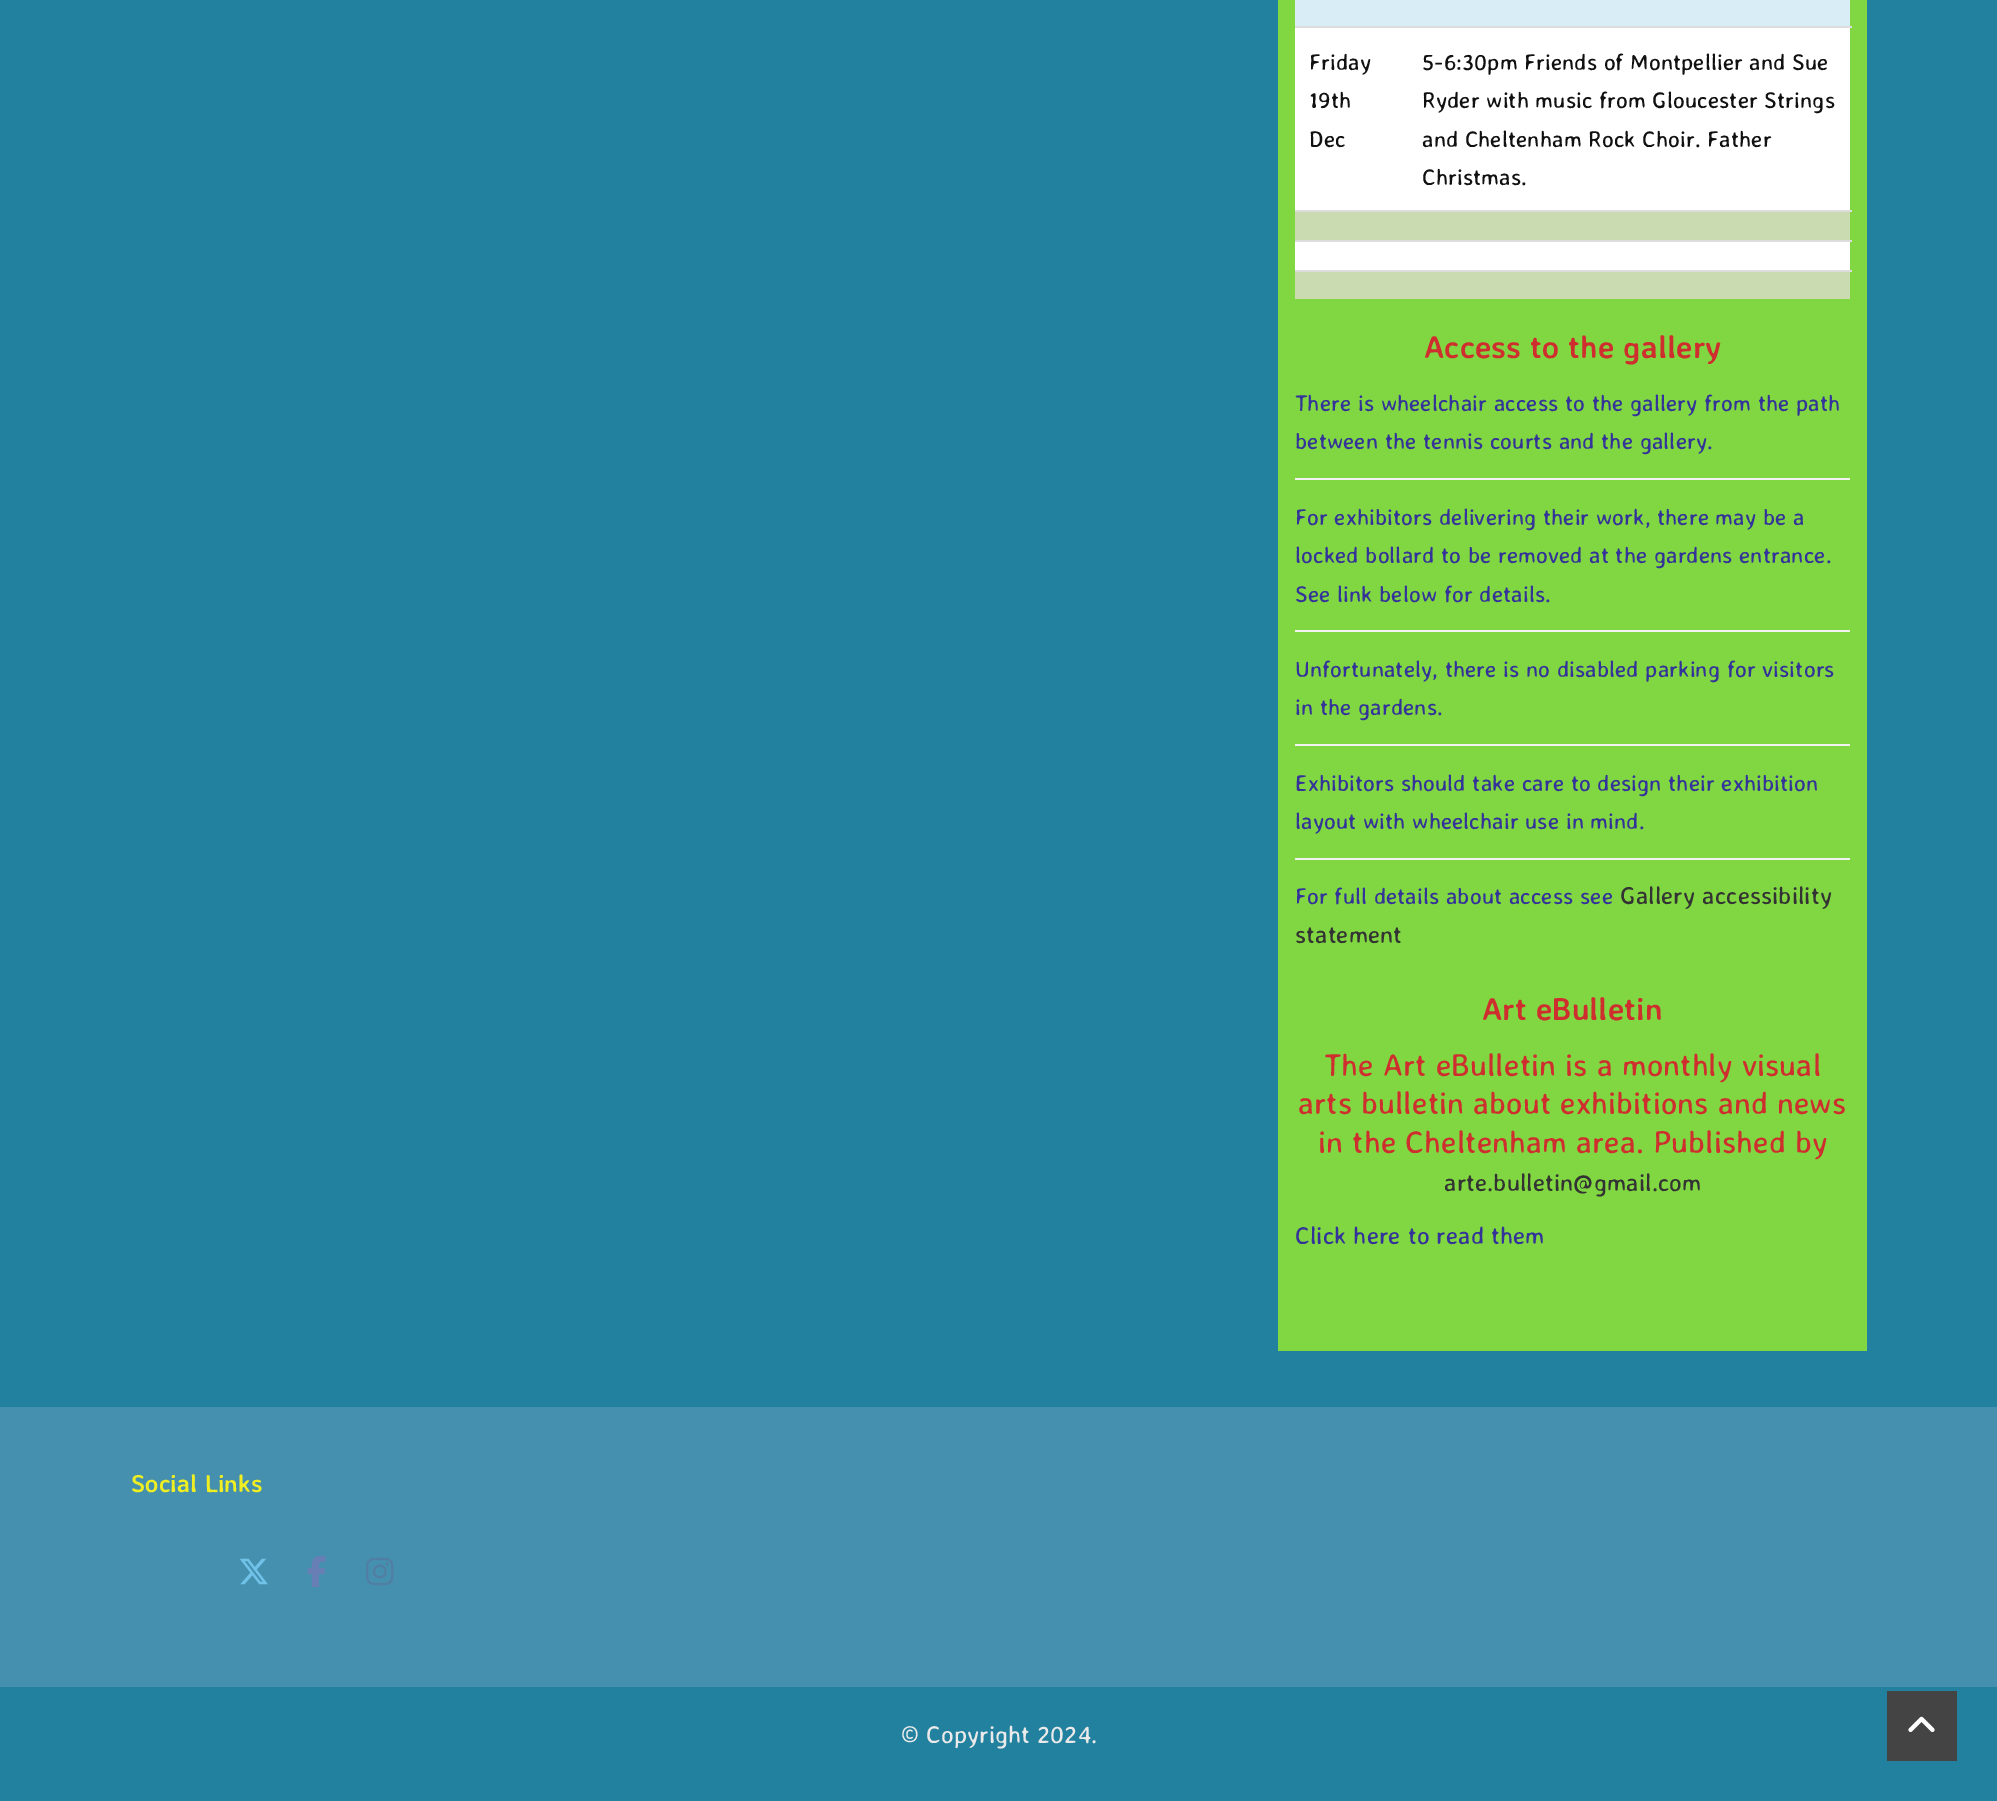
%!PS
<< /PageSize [1997 1801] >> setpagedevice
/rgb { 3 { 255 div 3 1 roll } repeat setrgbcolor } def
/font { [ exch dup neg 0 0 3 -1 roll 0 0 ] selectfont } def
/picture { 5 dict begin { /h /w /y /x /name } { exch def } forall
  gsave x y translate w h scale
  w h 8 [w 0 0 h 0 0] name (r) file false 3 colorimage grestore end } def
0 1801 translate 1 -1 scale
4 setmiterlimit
34 129 159 rgb
0 0 1997 1801 rectfill
[
  [1278 0 589 1351 129 215 66]
  [1295 0 555 26 217 237 247]
  [1295 28 555 182 255 255 255]
  [1295 26 557 2 221 221 221]
  [1295 210 557 2 221 221 221]
  [1295 212 555 28 203 219 177]
  [1295 240 557 2 221 221 221]
  [1295 242 555 28 255 255 255]
  [1295 270 557 2 221 221 221]
  [1295 272 555 27 203 219 177]
  [1295 478 555 2 242 242 242]
  [1295 630 555 2 242 242 242]
  [1295 744 555 2 242 242 242]
  [1295 858 555 2 242 242 242]
  [0 1407 1997 280 70 144 175]
] { aload pop rgb rectfill } forall
(img/1.rgb) 240 1558 28 27 picture
(img/2.rgb) 307 1556 19 31 picture
(img/3.rgb) 366 1557 28 29 picture
68 68 68 rgb
1887 1691 70 70 rectfill
(img/4.rgb) 1908 1716 27 17 picture
/AveriaSansLibre-Regular 22.75 font
17 17 17 rgb
[
  [(Friday) 1309 70]
  [(19th) 1309 108]
  [(Dec) 1309 147]
  [(5-6:30pm Friends of Montpellier and Sue) 1422 70]
  [(Ryder with music from Gloucester Strings) 1422 108]
  [(and Cheltenham Rock Choir. Father) 1422 147]
  [(Christmas.) 1422 185]
] { aload pop moveto show } forall
/AveriaSansLibre-Bold 31.5 font
207 46 46 rgb
1424 358 moveto (Access to the gallery) show
/AveriaSansLibre-Regular 22.75 font
51 51 153 rgb
[
  [(There is wheelchair access to the gallery from the path) 1295 411]
  [(between the tennis courts and the gallery.) 1295 449]
  [(For exhibitors delivering their work, there may be a) 1295 525]
  [(locked bollard to be removed at the gardens entrance.) 1295 563]
  [(See link below for details.) 1295 602]
  [(Unfortunately, there is no disabled parking for visitors) 1295 677]
  [(in the gardens.) 1295 715]
  [(Exhibitors should take care to design their exhibition) 1295 791]
  [(layout with wheelchair use in mind.) 1295 829]
  [(For full details about access see) 1295 904]
] { aload pop moveto show } forall
/AveriaSansLibre-Regular 24.5 font
51 51 51 rgb
1620 904 moveto (Gallery accessibility) show
1295 943 moveto (statement) show
/AveriaSansLibre-Bold 31.5 font
207 46 46 rgb
1482 1020 moveto (Art eBulletin) show
/AveriaSansLibre-Regular 31.5 font
[
  [(The Art eBulletin is a monthly visual) 1324 1076]
  [(arts bulletin about exhibitions and news) 1298 1114]
  [(in the Cheltenham area. Published by) 1318 1153]
] { aload pop moveto show } forall
/AveriaSansLibre-Regular 24.5 font
51 51 51 rgb
1444 1191 moveto (arte.bulletin@gmail.com) show
51 51 153 rgb
1295 1244 moveto (Click here to read them) show
/AveriaSansLibre-Bold 24.5 font
238 238 34 rgb
131 1492 moveto (Social Links) show
/AveriaSansLibre-Regular 24.5 font
234 234 234 rgb
901 1743 moveto (© Copyright 2024.) show
showpage
